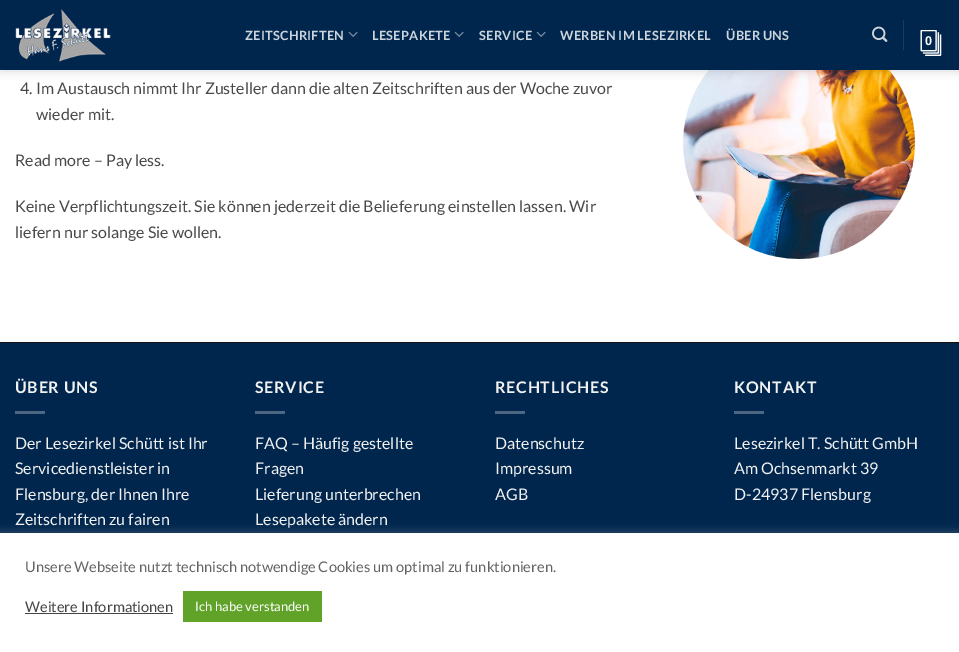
%!PS
<< /PageSize [959 652] /PageUsesTransparency true >> setpagedevice
/rgb { 3 { 255 div 3 1 roll } repeat setrgbcolor } def
/font { [ exch dup neg 0 0 3 -1 roll 0 0 ] selectfont } def
/alpha { dup .setfillconstantalpha .setstrokeconstantalpha } def
/roundrect { 5 dict begin { /r /h /w /y /x } { exch def } forall
  x r add y moveto x w add y 2 copy h add r arct x w add y h add x 1 index r arct
  x y h add x y r arct x y 2 copy exch w add exch r arct closepath end } def
/shadow { 12 dict begin { /a /b /q /h /w /y /x } { exch def } forall gsave /was 0 def
  9 -2 -9 { dup b mul 4 div /e exch def 1 sub .425 mul 2.718 exch exp 1 add a .99 .min exch div /now exch def
    1 1 now sub 1 was sub div sub alpha /was now def
    w h .min e 2 mul add 0 gt { x e sub y e sub w e 2 mul add h e 2 mul add
      q e add b .6 mul add w h .min 2 div e add .min 0 .max roundrect fill } if } for grestore end } def
/picture { 5 dict begin { /h /w /y /x /name } { exch def } forall
  gsave x y translate w h scale
  w h 8 [w 0 0 h 0 0] name (r) file false 3 colorimage grestore end } def
0 .pushpdf14devicefilter
0 652 translate 1 -1 scale
4 setmiterlimit
255 255 255 rgb
0 0 959 652 rectfill
(img/5.rgb) 683 70 232 189 picture
0 0 0 rgb
1 1 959 70 0 5 0.15 shadow
0 38 78 rgb
0 0 959 70 rectfill
(img/1.rgb) 15 9 96 53 picture
(img/2.rgb) 348 31 10 6 picture
(img/2.rgb) 454 31 10 6 picture
(img/2.rgb) 536 31 10 6 picture
(img/3.rgb) 872 26 16 16 picture
26 60 96 rgb
903 20 1 30 rectfill
(img/4.rgb) 920 30 22 26 picture
[
  [0 342 959 1 28 17 17]
  [0 344 959 189 0 38 78]
  [0 343 959 1 0 36 74]
  [15 411 30 3 77 103 131]
  [255 411 30 3 77 103 131]
  [495 411 30 3 77 103 131]
  [734 411 30 3 77 103 131]
] { aload pop rgb rectfill } forall
172 171 171 rgb
0 532 959 119 0 5 0.3 shadow
[
  [0 533 959 119 255 255 255]
  [25 613 148 1 68 68 68]
  [183 591 139 31 97 162 41]
] { aload pop rgb rectfill } forall
/Lato-Bold 12.75 font
204 212 220 rgb
245 40 moveto 0.25 0 (ZEITSCHRIFTEN) ashow
372 40 moveto 0.25 0 (LESEPAKETE) ashow
479 40 moveto 0.25 0 (SERVICE) ashow
560 40 moveto 0.25 0 (WERBEN IM LESEZIRKEL) ashow
726 40 moveto 0.25 0 (ÜBER UNS) ashow
/LiberationSans-Bold 12.75 font
255 255 255 rgb
925 45 moveto 0.25 0 (0) ashow
/Lato-Regular 16 font
74 74 74 rgb
[
  [(4. Im Austausch nimmt Ihr Zusteller dann die alten Zeitschriften aus der Woche zuvor) 20 94]
  [(wieder mit.) 36 120]
  [(Read more – Pay less.) 15 166]
  [(Keine Verpflichtungszeit. Sie können jederzeit die Belieferung einstellen lassen. Wir) 15 212]
  [(liefern nur solange Sie wollen.) 15 238]
] { aload pop moveto show } forall
/Lato-Bold 16 font
241 241 241 rgb
15 393 moveto 0.75 0 (ÜBER UNS) ashow
/Lato-Regular 16 font
[
  [(Der Lesezirkel Schütt ist Ihr) 15 449]
  [(Servicedienstleister in) 15 474]
  [(Flensburg, der Ihnen Ihre) 15 500]
  [(Zeitschriften zu fairen) 15 525]
] { aload pop moveto show } forall
/Lato-Bold 16 font
255 393 moveto 0.75 0 (SERVICE) ashow
/Lato-Regular 16 font
[
  [(FAQ – Häufig gestellte) 255 449]
  [(Fragen) 255 474]
  [(Lieferung unterbrechen) 255 500]
  [(Lesepakete ändern) 255 525]
] { aload pop moveto show } forall
/Lato-Bold 16 font
495 393 moveto 0.75 0 (RECHTLICHES) ashow
/Lato-Regular 16 font
[
  [(Datenschutz) 495 449]
  [(Impressum) 495 474]
  [(AGB) 495 500]
] { aload pop moveto show } forall
/Lato-Bold 16 font
734 393 moveto 0.75 0 (KONTAKT) ashow
/Lato-Regular 16 font
[
  [(Lesezirkel T. Schütt GmbH) 734 449]
  [(Am Ochsenmarkt 39) 734 474]
  [(D-24937 Flensburg) 734 500]
] { aload pop moveto show } forall
/Lato-Regular 14.65 font
99 99 99 rgb
25 572 moveto (Unsere Webseite nutzt technisch notwendige Cookies um optimal zu funktionieren.) show
68 68 68 rgb
25 612 moveto (Weitere Informationen) show
/Lato-Regular 13 font
255 255 255 rgb
195 611 moveto (Ich habe verstanden) show
.poppdf14devicefilter showpage
